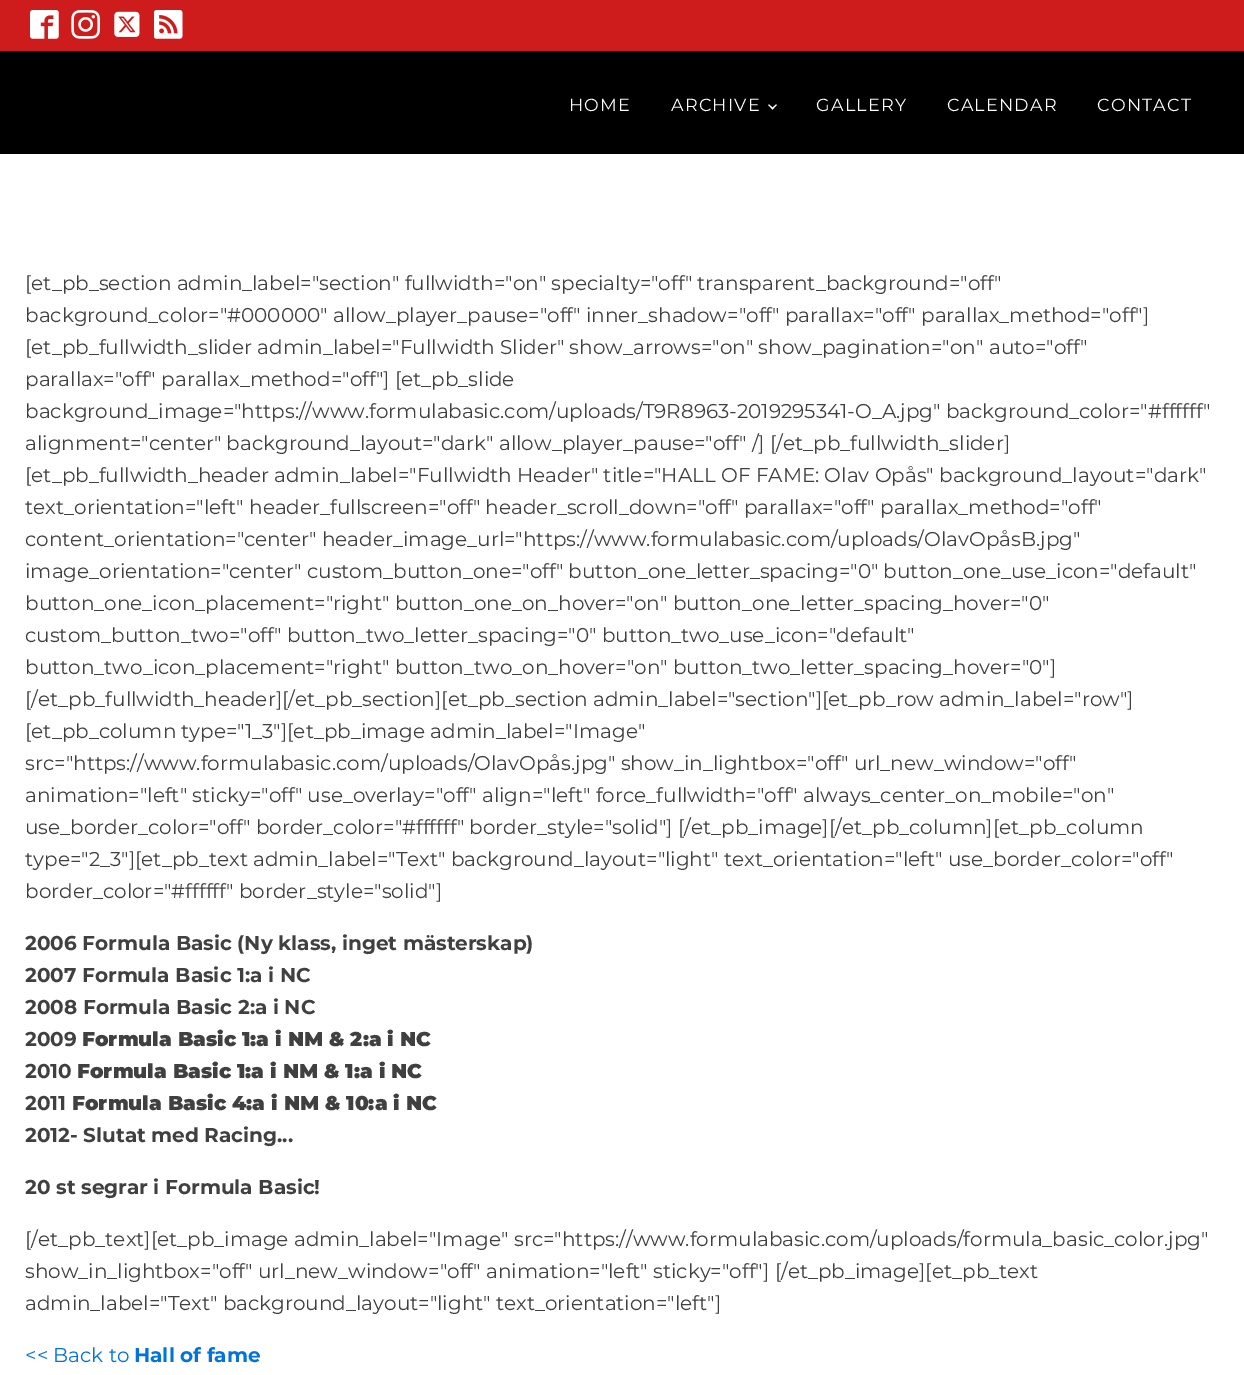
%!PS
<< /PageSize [1244 1375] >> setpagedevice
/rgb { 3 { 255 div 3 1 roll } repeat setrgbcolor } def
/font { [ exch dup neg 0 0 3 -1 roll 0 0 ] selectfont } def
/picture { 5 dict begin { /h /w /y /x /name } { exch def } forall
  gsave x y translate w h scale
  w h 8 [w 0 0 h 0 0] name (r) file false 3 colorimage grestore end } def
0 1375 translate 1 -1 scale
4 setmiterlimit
255 255 255 rgb
0 0 1244 1375 rectfill
206 28 28 rgb
0 0 1244 51 rectfill
(img/1.rgb) 30 10 29 29 picture
(img/2.rgb) 71 10 29 29 picture
(img/3.rgb) 114 11 26 26 picture
(img/4.rgb) 154 10 29 29 picture
0 0 0 rgb
0 51 1244 103 rectfill
255 255 255 rgb
777 105 moveto 772.5 109.5 lineto 771.5 108.5 lineto 776 104.5 lineto closepath fill
773.5 108.5 moveto 772.5 109.5 lineto 768 105 lineto 769 104.5 lineto closepath fill
/Montserrat-Regular 17.5 font
569 111 moveto 1.25 0 (HOME) ashow
671 111 moveto 1.25 0 (ARCHIVE) ashow
816 111 moveto 1.25 0 (GALLERY) ashow
947 111 moveto 1.25 0 (CALENDAR) ashow
1097 111 moveto 1.25 0 (CONTACT) ashow
/Montserrat-Regular 20 font
64 64 64 rgb
[
  [([et_pb_section admin_label="section" fullwidth="on" specialty="off" transparent_background="off") 25 290]
  [(background_color="#000000" allow_player_pause="off" inner_shadow="off" parallax="off" parallax_method="off"]) 25 322]
  [([et_pb_fullwidth_slider admin_label="Fullwidth Slider" show_arrows="on" show_pagination="on" auto="off") 25 354]
  [(parallax="off" parallax_method="off"] [et_pb_slide) 25 386]
  [(background_image="https://www.formulabasic.com/uploads/T9R8963-2019295341-O_A.jpg" background_color="#ffffff") 25 418]
  [(alignment="center" background_layout="dark" allow_player_pause="off" /] [/et_pb_fullwidth_slider]) 25 450]
  [([et_pb_fullwidth_header admin_label="Fullwidth Header" title="HALL OF FAME: Olav Opås" background_layout="dark") 25 482]
  [(text_orientation="left" header_fullscreen="off" header_scroll_down="off" parallax="off" parallax_method="off") 25 514]
  [(content_orientation="center" header_image_url="https://www.formulabasic.com/uploads/OlavOpåsB.jpg") 25 546]
  [(image_orientation="center" custom_button_one="off" button_one_letter_spacing="0" button_one_use_icon="default") 25 578]
  [(button_one_icon_placement="right" button_one_on_hover="on" button_one_letter_spacing_hover="0") 25 610]
  [(custom_button_two="off" button_two_letter_spacing="0" button_two_use_icon="default") 25 642]
  [(button_two_icon_placement="right" button_two_on_hover="on" button_two_letter_spacing_hover="0"]) 25 674]
  [([/et_pb_fullwidth_header][/et_pb_section][et_pb_section admin_label="section"][et_pb_row admin_label="row"]) 25 706]
  [([et_pb_column type="1_3"][et_pb_image admin_label="Image") 25 738]
  [(src="https://www.formulabasic.com/uploads/OlavOpås.jpg" show_in_lightbox="off" url_new_window="off") 25 770]
  [(animation="left" sticky="off" use_overlay="off" align="left" force_fullwidth="off" always_center_on_mobile="on") 25 802]
  [(use_border_color="off" border_color="#ffffff" border_style="solid"] [/et_pb_image][/et_pb_column][et_pb_column) 25 834]
  [(type="2_3"][et_pb_text admin_label="Text" background_layout="light" text_orientation="left" use_border_color="off") 25 866]
  [(border_color="#ffffff" border_style="solid"]) 25 898]
] { aload pop moveto show } forall
/Montserrat-Bold 20 font
[
  [(2006 Formula Basic \(Ny klass, inget mästerskap\)) 25 950]
  [(2007 Formula Basic 1:a i NC) 25 982]
  [(2008 Formula Basic 2:a i NC) 25 1014]
  [(2009) 25 1046]
] { aload pop moveto show } forall
/Montserrat-Black 20 font
82 1046 moveto (Formula Basic 1:a i NM & 2:a i NC) show
/Montserrat-Bold 20 font
25 1078 moveto (2010) show
/Montserrat-Black 20 font
77 1078 moveto (Formula Basic 1:a i NM & 1:a i NC) show
/Montserrat-Bold 20 font
25 1110 moveto (2011) show
/Montserrat-Black 20 font
72 1110 moveto (Formula Basic 4:a i NM & 10:a i NC) show
/Montserrat-Bold 20 font
25 1142 moveto (2012- Slutat med Racing...) show
25 1194 moveto (20 st segrar i Formula Basic!) show
/Montserrat-Regular 20 font
[
  [([/et_pb_text][et_pb_image admin_label="Image" src="https://www.formulabasic.com/uploads/formula_basic_color.jpg") 25 1246]
  [(show_in_lightbox="off" url_new_window="off" animation="left" sticky="off"] [/et_pb_image][et_pb_text) 25 1278]
  [(admin_label="Text" background_layout="light" text_orientation="left"]) 25 1310]
] { aload pop moveto show } forall
0 116 219 rgb
25 1362 moveto (<< Back to) show
/Montserrat-Bold 20 font
134 1362 moveto (Hall of fame) show
showpage
